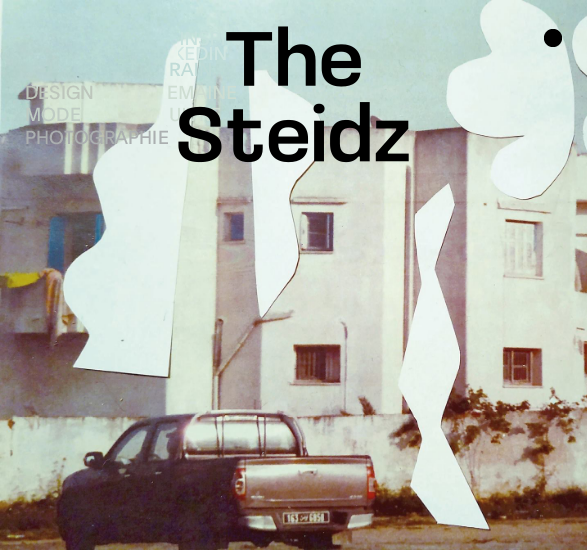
%!PS
<< /PageSize [587 550] >> setpagedevice
/rgb { 3 { 255 div 3 1 roll } repeat setrgbcolor } def
/font { [ exch dup neg 0 0 3 -1 roll 0 0 ] selectfont } def
/circle { newpath 0 360 arc closepath } def
/picture { 5 dict begin { /h /w /y /x /name } { exch def } forall
  gsave x y translate w h scale
  w h 8 [w 0 0 h 0 0] name (r) file false 3 colorimage grestore end } def
0 550 translate 1 -1 scale
4 setmiterlimit
255 255 255 rgb
0 0 587 550 rectfill
(img/1.rgb) 0 0 587 550 picture
0 0 0 rgb
553 38 9 circle fill
/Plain-Regular 18.5 font
192 219 215 rgb
169 76 moveto (RAI) show
189 198 188 rgb
25 99 moveto (DESIGN) show
191 204 196 rgb
25 121 moveto (MODE) show
171 175 176 rgb
25 144 moveto (PHOTOGRAPHIE) show
206 221 210 rgb
[
  [(') 35 99]
  [(EM) 167 99]
  [(U) 169 121]
] { aload pop moveto show } forall
(img/2.rgb) 178 26 231 137 picture
showpage
